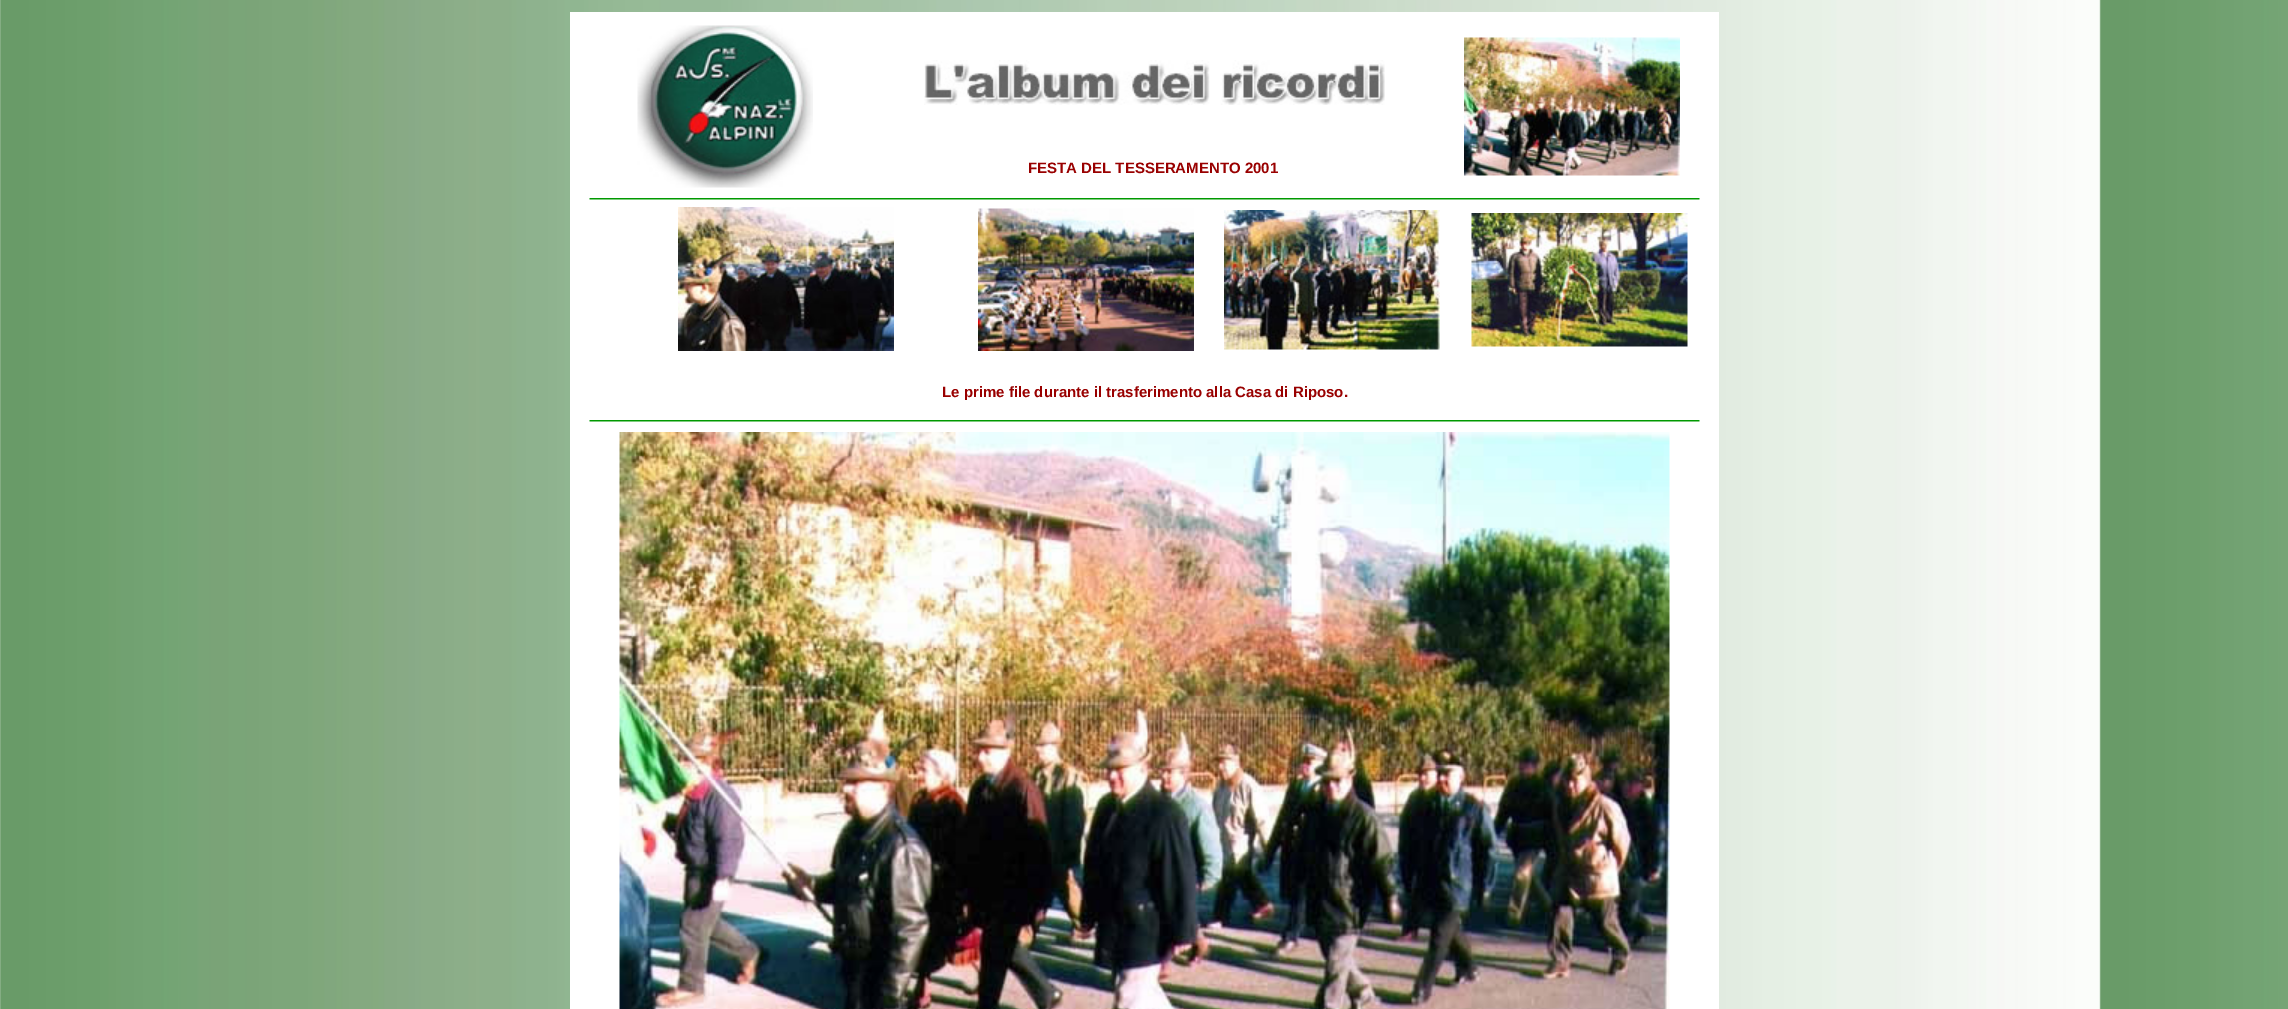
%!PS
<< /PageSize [2288 1009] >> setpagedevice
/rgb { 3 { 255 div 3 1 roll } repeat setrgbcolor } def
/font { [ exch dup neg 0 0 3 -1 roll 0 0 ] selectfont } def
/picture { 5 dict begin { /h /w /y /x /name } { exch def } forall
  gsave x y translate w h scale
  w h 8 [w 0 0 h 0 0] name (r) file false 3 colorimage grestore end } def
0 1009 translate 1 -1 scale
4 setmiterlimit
255 255 255 rgb
0 0 2288 1009 rectfill
(img/1.rgb) 0 0 2288 1009 picture
570 12 1149 997 rectfill
(img/2.rgb) 637 25 176 163 picture
(img/3.rgb) 924 60 461 45 picture
(img/4.rgb) 1464 37 216 139 picture
(img/5.rgb) 589 198 1111 2 picture
(img/6.rgb) 678 207 216 144 picture
(img/7.rgb) 978 208 216 143 picture
(img/8.rgb) 1224 210 216 140 picture
(img/9.rgb) 1471 213 217 134 picture
(img/5.rgb) 589 420 1111 2 picture
(img/10.rgb) 619 432 1051 577 picture
/LiberationSans-Bold 15 font
153 0 0 rgb
1028 173 moveto (FESTA DEL TESSERAMENTO 2001) show
942 397 moveto (Le prime file durante il trasferimento alla Casa di Riposo.) show
showpage
